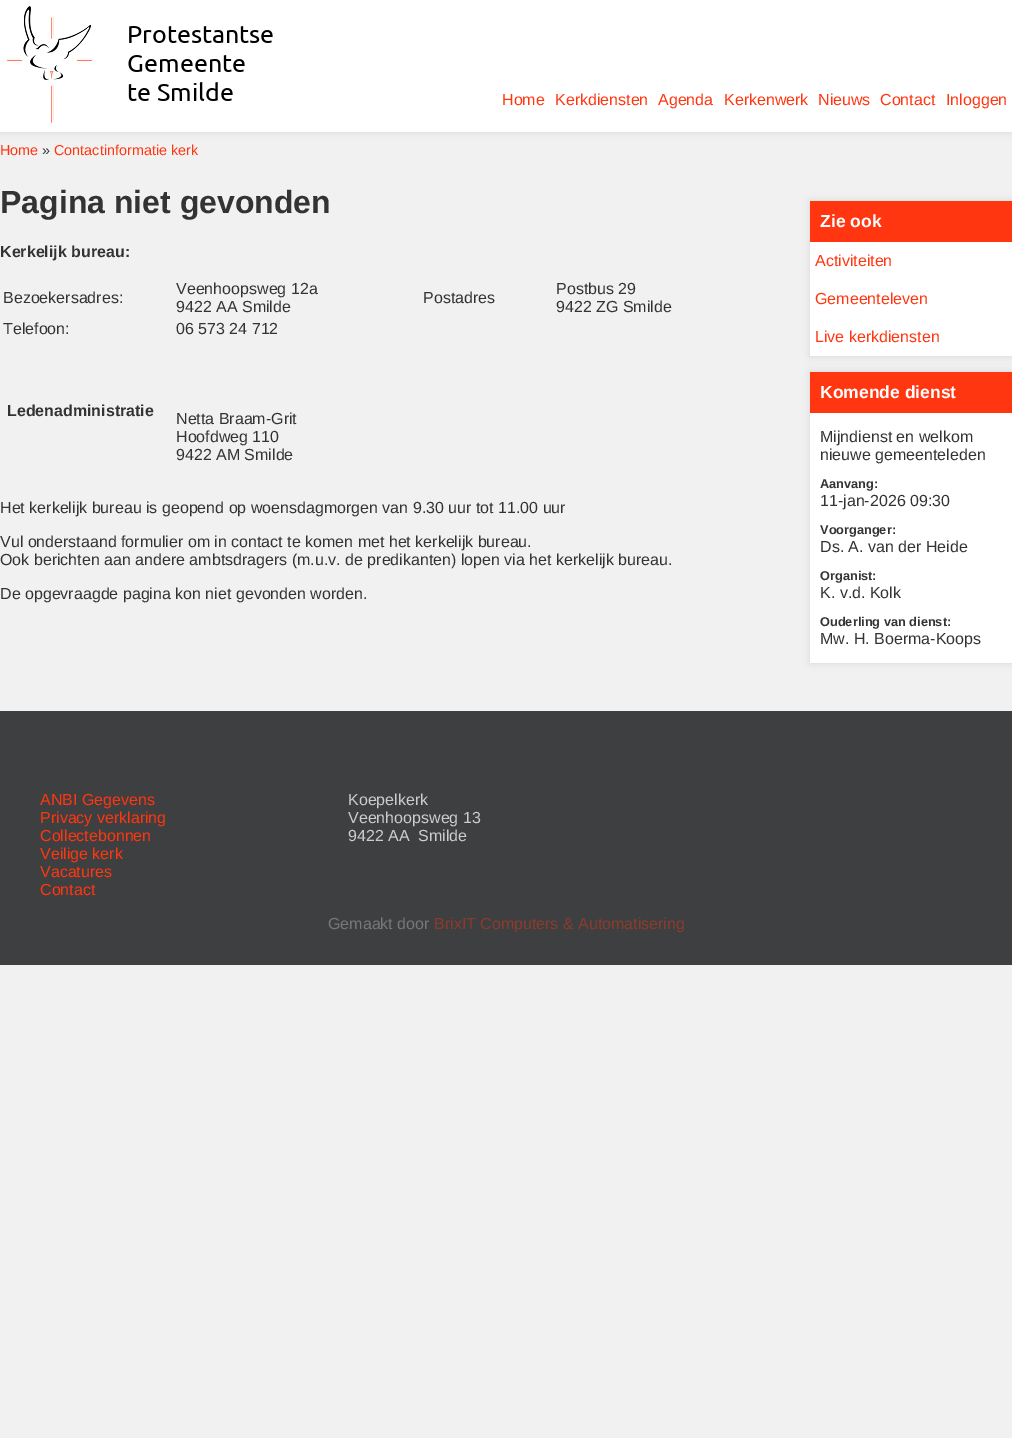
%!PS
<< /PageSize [1012 1438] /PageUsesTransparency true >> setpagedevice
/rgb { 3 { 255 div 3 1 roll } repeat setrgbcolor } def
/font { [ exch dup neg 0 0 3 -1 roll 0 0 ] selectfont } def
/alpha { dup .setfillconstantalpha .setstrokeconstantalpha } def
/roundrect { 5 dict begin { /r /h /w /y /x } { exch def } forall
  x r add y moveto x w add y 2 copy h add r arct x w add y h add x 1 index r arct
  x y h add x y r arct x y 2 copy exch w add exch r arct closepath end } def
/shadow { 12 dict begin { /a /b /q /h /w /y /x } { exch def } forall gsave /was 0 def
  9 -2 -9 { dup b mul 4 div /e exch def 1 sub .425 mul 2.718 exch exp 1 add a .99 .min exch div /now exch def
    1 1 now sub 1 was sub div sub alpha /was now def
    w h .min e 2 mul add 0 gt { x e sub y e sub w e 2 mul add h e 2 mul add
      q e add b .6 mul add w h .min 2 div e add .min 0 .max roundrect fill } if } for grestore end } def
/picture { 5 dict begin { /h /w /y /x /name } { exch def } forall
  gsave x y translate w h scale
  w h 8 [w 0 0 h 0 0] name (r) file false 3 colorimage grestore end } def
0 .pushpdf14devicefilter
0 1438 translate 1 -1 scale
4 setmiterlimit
241 241 241 rgb
0 0 1012 1438 rectfill
0 0 0 rgb
0 0 1012 132 0 4 0.1 shadow
255 255 255 rgb
0 0 1012 132 rectfill
(img/1.rgb) 6 6 267 117 picture
0 0 0 rgb
810 201 202 155 0 4 0.1 shadow
255 255 255 rgb
810 242 202 114 rectfill
255 54 16 rgb
810 201 202 41 rectfill
0 0 0 rgb
810 372 202 291 0 4 0.1 shadow
[
  [810 413 202 250 255 255 255]
  [810 372 202 41 255 54 16]
  [0 711 1012 254 61 63 64]
] { aload pop rgb rectfill } forall
/LiberationSans-Regular 16 font
255 54 16 rgb
[
  [(Home) 502 105]
  [(Kerkdiensten) 555 105]
  [(Agenda) 658 105]
  [(Kerkenwerk) 724 105]
  [(Nieuws) 818 105]
  [(Contact) 880 105]
  [(Inloggen) 946 105]
] { aload pop moveto show } forall
/LiberationSans-Regular 14.4 font
0 155 moveto (Home) show
51 51 51 rgb
42 155 moveto (») show
255 54 16 rgb
54 155 moveto (Contactinformatie kerk) show
/LiberationSans-Bold 32 font
51 51 51 rgb
0 213 moveto (Pagina niet gevonden) show
/LiberationSans-Bold 16 font
0 257 moveto (Kerkelijk bureau:) show
/LiberationSans-Regular 16 font
[
  [(Bezoekersadres:) 3 303]
  [(Veenhoopsweg 12a) 176 294]
  [(9422 AA Smilde) 176 312]
  [(Postadres) 423 303]
  [(Postbus 29) 556 294]
  [(9422 ZG Smilde) 556 312]
  [(Telefoon:) 3 334]
  [(06 573 24 712) 176 334]
] { aload pop moveto show } forall
/LiberationSans-Bold 16 font
7 416 moveto (Ledenadministratie) show
/LiberationSans-Regular 16 font
[
  [(Netta Braam-Grit) 176 424]
  [(Hoofdweg 110) 176 442]
  [(9422 AM Smilde) 176 460]
  [(Het kerkelijk bureau is geopend op woensdagmorgen van 9.30 uur tot 11.00 uur) 0 513]
  [(Vul onderstaand formulier om in contact te komen met het kerkelijk bureau.) 0 547]
  [(Ook berichten aan andere ambtsdragers \(m.u.v. de predikanten\) lopen via het kerkelijk bureau.) 0 565]
  [(De opgevraagde pagina kon niet gevonden worden.) 0 599]
] { aload pop moveto show } forall
/LiberationSans-Bold 17.5 font
255 255 255 rgb
820 227 moveto (Zie ook) show
/LiberationSans-Regular 16 font
255 54 16 rgb
[
  [(Activiteiten) 815 266]
  [(Gemeenteleven) 815 304]
  [(Live kerkdiensten) 815 342]
] { aload pop moveto show } forall
/LiberationSans-Bold 17.5 font
255 255 255 rgb
820 398 moveto (Komende dienst) show
/LiberationSans-Regular 16 font
51 51 51 rgb
820 442 moveto (Mijndienst en welkom) show
820 460 moveto (nieuwe gemeenteleden) show
/LiberationSans-Bold 12.75 font
820 488 moveto (Aanvang:) show
/LiberationSans-Regular 16 font
820 506 moveto (11-jan-2026 09:30) show
/LiberationSans-Bold 12.75 font
820 534 moveto (Voorganger:) show
/LiberationSans-Regular 16 font
820 552 moveto (Ds. A. van der Heide) show
/LiberationSans-Bold 12.75 font
820 580 moveto (Organist:) show
/LiberationSans-Regular 16 font
820 598 moveto (K. v.d. Kolk) show
/LiberationSans-Bold 12.75 font
820 626 moveto (Ouderling van dienst:) show
/LiberationSans-Regular 16 font
820 644 moveto (Mw. H. Boerma-Koops) show
255 54 16 rgb
[
  [(ANBI Gegevens) 40 805]
  [(Privacy verklaring) 40 823]
  [(Collectebonnen) 40 841]
  [(Veilige kerk) 40 859]
  [(Vacatures) 40 877]
  [(Contact) 40 895]
] { aload pop moveto show } forall
204 204 204 rgb
[
  [(Koepelkerk) 348 805]
  [(Veenhoopsweg 13) 348 823]
  [(9422 AA  Smilde) 348 841]
] { aload pop moveto show } forall
118 119 120 rgb
328 929 moveto (Gemaakt door) show
139 59 45 rgb
434 929 moveto (BrixIT Computers & Automatisering) show
.poppdf14devicefilter showpage
